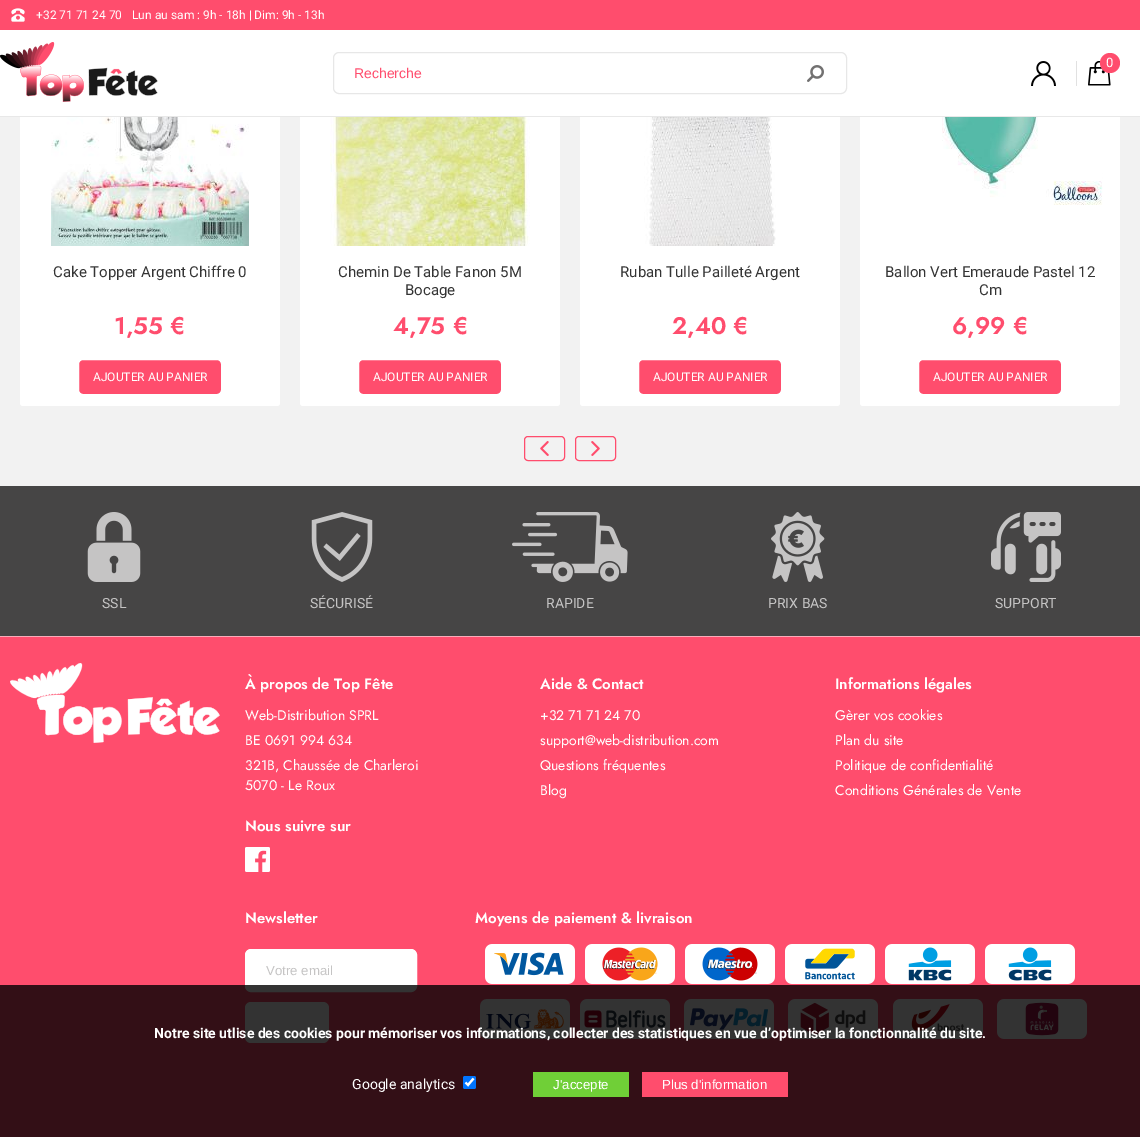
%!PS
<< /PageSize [1140 1137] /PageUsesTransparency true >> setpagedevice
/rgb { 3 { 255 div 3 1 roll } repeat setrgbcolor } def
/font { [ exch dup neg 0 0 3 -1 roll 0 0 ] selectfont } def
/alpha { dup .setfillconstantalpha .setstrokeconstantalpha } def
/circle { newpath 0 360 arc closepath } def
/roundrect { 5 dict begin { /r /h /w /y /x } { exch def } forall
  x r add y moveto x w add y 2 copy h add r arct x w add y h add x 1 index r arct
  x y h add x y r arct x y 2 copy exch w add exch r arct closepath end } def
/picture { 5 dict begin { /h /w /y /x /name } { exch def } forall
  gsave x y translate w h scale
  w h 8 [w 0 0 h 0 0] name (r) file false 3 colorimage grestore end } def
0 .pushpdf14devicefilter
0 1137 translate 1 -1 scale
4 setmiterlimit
242 242 242 rgb
0 0 1140 1137 rectfill
255 255 255 rgb
20 -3 260 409 3 roundrect fill
300 -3 260 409 3 roundrect fill
580 -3 260 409 3 roundrect fill
860 -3 260 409 3 roundrect fill
[
  [0 30 1140 86 255 255 255]
  [0 116 1140 1 232 232 232]
  [0 0 1140 30 255 77 109]
] { aload pop rgb rectfill } forall
(img/1.rgb) 11 8 14 14 picture
(img/2.rgb) 0 42 158 60 picture
225 225 225 rgb
1076 61 1 25 rectfill
(img/3.rgb) 1031 61 25 25 picture
(img/4.rgb) 1088 61 23 25 picture
255 77 109 rgb
1110 63 10 circle fill
231 231 231 rgb
333.5 52.5 513 41 5.5 roundrect stroke
(img/5.rgb) 807 65 17 17 picture
(img/6.rgb) 51 117 198 129 picture
255 77 109 rgb
78 359 144 36 5 roundrect gsave fill grestore
255 255 255 rgb
2 setlinewidth
stroke
(img/7.rgb) 330 117 200 129 picture
255 77 109 rgb
358 359 144 36 5 roundrect gsave fill grestore
255 255 255 rgb
stroke
(img/8.rgb) 644 117 132 129 picture
255 77 109 rgb
638 359 144 36 5 roundrect gsave fill grestore
255 255 255 rgb
stroke
(img/9.rgb) 942 117 161 88 picture
255 77 109 rgb
918 359 144 36 5 roundrect gsave fill grestore
255 255 255 rgb
stroke
255 77 109 rgb
1 setlinewidth
524.5 436.5 40 24 3.5 roundrect stroke
(img/10.rgb) 540 441 9 15 picture
575.5 436.5 40 24 3.5 roundrect stroke
(img/11.rgb) 591 441 9 15 picture
70 69 69 rgb
0 486 1140 150 rectfill
249 171 185 rgb
0 636 1140 1 rectfill
(img/12.rgb) 87 512 54 70 picture
(img/13.rgb) 311 512 62 70 picture
(img/14.rgb) 512 512 116 70 picture
(img/15.rgb) 771 512 54 70 picture
(img/16.rgb) 991 512 70 70 picture
255 77 109 rgb
0 637 1140 500 rectfill
(img/17.rgb) 10 663 210 80 picture
(img/18.rgb) 245 847 25 25 picture
255 255 255 rgb
245.5 949.5 171 42 5.5 roundrect gsave fill grestore
stroke
245 1002 84 41 6 roundrect fill
(img/19.rgb) 485 944 90 40 picture
(img/20.rgb) 585 944 90 40 picture
(img/21.rgb) 685 944 90 40 picture
(img/22.rgb) 785 944 90 40 picture
(img/23.rgb) 885 944 90 40 picture
(img/24.rgb) 985 944 90 40 picture
(img/25.rgb) 480 999 90 40 picture
(img/26.rgb) 580 999 90 40 picture
(img/27.rgb) 684 999 90 40 picture
(img/28.rgb) 788 999 90 40 picture
(img/29.rgb) 893 999 90 40 picture
(img/30.rgb) 997 999 90 40 picture
0.8 alpha
0 0 0 rgb
0 985 1140 152 rectfill
1 alpha
0 117 255 rgb
463 1076 13 13 2 roundrect fill
255 255 255 rgb
2.1 setlinewidth
465.5 1082.5 moveto 468 1085 lineto 473.5 1078.5 lineto stroke
112 207 55 rgb
533 1072 96 25 rectfill
255 77 109 rgb
642 1072 146 25 rectfill
/Roboto-Regular 12 font
255 255 255 rgb
36 19 moveto (+32 71 71 24 70) show
132 19 moveto (Lun au sam : 9h - 18h | Dim: 9h - 13h) show
/Roboto-Regular 13 font
1106 67 moveto (0) show
/LiberationSans-Regular 14 font
255 77 109 rgb
354 78 moveto (Recherche) show
/Roboto-Regular 15 font
52 52 52 rgb
53 277 moveto (Cake Topper Argent Chiffre 0) show
/Jost-SemiBold 24 font
255 77 109 rgb
114 334 moveto (1,55 €) show
/Roboto-Regular 12 font
255 255 255 rgb
93 381 moveto (AJOUTER AU PANIER) show
/Roboto-Regular 15 font
52 52 52 rgb
338 277 moveto (Chemin De Table Fanon 5M) show
405 295 moveto (Bocage) show
/Jost-SemiBold 24 font
255 77 109 rgb
393 334 moveto (4,75 €) show
/Roboto-Regular 12 font
255 255 255 rgb
373 381 moveto (AJOUTER AU PANIER) show
/Roboto-Regular 15 font
52 52 52 rgb
620 277 moveto (Ruban Tulle Pailleté Argent) show
/Jost-SemiBold 24 font
255 77 109 rgb
672 334 moveto (2,40 €) show
/Roboto-Regular 12 font
255 255 255 rgb
653 381 moveto (AJOUTER AU PANIER) show
/Roboto-Regular 15 font
52 52 52 rgb
885 277 moveto (Ballon Vert Emeraude Pastel 12) show
979 295 moveto (Cm) show
/Jost-SemiBold 24 font
255 77 109 rgb
952 334 moveto (6,99 €) show
/Roboto-Regular 12 font
255 255 255 rgb
933 381 moveto (AJOUTER AU PANIER) show
/Roboto-Regular 14 font
197 196 196 rgb
[
  [(SSL) 102 608]
  [(SÉCURISÉ) 310 608]
  [(RAPIDE) 546 608]
  [(PRIX BAS) 768 608]
  [(SUPPORT) 995 608]
] { aload pop moveto show } forall
/Jost-SemiBold 15 font
255 255 255 rgb
245 689 moveto (À propos de Top Fête) show
/Jost-Regular 14 font
[
  [(Web-Distribution SPRL) 245 720]
  [(BE 0691 994 634) 245 745]
  [(321B, Chaussée de Charleroi) 245 770]
  [(5070 - Le Roux) 245 790]
] { aload pop moveto show } forall
/Jost-SemiBold 15 font
540 689 moveto (Aide & Contact) show
/Jost-Regular 14 font
[
  [(+32 71 71 24 70) 540 720]
  [(support@web-distribution.com) 540 745]
  [(Questions fréquentes) 540 770]
  [(Blog) 540 795]
] { aload pop moveto show } forall
/Jost-SemiBold 15 font
835 689 moveto (Informations légales) show
/Jost-Regular 14 font
[
  [(Gèrer vos cookies) 835 720]
  [(Plan du site) 835 745]
  [(Politique de confidentialité) 835 770]
  [(Conditions Générales de Vente) 835 795]
] { aload pop moveto show } forall
/Jost-SemiBold 15 font
245 831 moveto (Nous suivre sur) show
245 923 moveto (Newsletter) show
/LiberationSans-Regular 13.25 font
197 196 196 rgb
266 975 moveto (Votre email) show
/Jost-SemiBold 15 font
255 255 255 rgb
475 923 moveto (Moyens de paiement & livraison) show
/Roboto-Bold 14 font
154 1038 moveto (Notre site utlise des cookies pour mémoriser vos informations, collecter des statistiques en vue d’optimiser la fonctionnalité du site.) show
/Roboto-Regular 14 font
352 1089 moveto (Google analytics) show
/LiberationSans-Regular 13.25 font
553 1089 moveto (J'accepte) show
662 1089 moveto (Plus d'information) show
.poppdf14devicefilter showpage
